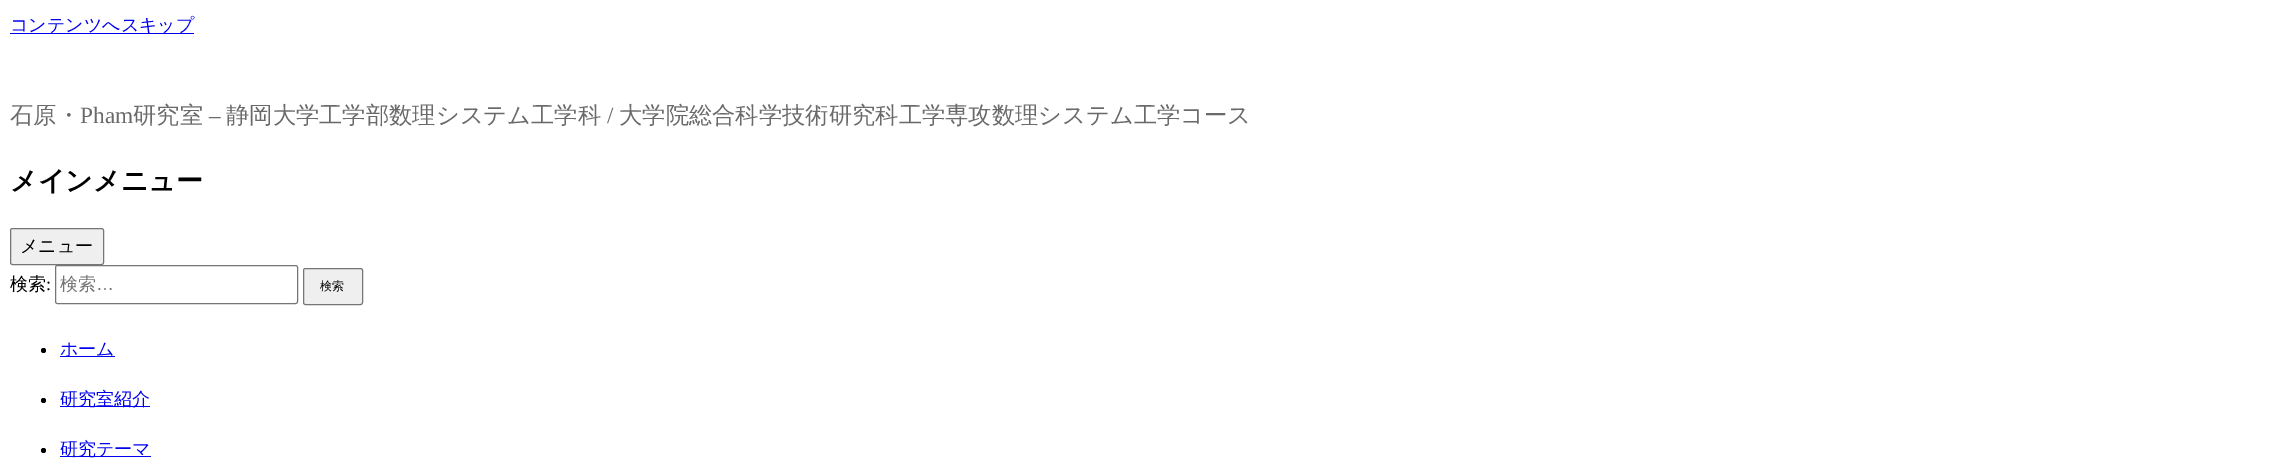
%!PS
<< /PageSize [2271 476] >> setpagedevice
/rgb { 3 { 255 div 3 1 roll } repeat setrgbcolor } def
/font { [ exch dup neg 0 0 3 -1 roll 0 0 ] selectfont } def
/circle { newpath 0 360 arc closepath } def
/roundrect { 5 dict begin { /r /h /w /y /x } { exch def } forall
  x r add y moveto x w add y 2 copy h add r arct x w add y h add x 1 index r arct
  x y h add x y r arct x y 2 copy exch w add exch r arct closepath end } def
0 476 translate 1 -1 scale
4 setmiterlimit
255 255 255 rgb
0 0 2271 476 rectfill
0 0 238 rgb
10 33 184 1 rectfill
239 239 239 rgb
10.5 228.5 93 36 2 roundrect gsave fill grestore
118 118 118 rgb
stroke
55.5 265.5 242 38 2 roundrect stroke
239 239 239 rgb
303.5 268.5 59 36 2 roundrect gsave fill grestore
118 118 118 rgb
stroke
0 0 0 rgb
43.5 350.5 2.5 circle fill
0 0 238 rgb
60 356 55 1 rectfill
0 0 0 rgb
43.5 400.5 2.5 circle fill
0 0 238 rgb
60 406 90 1 rectfill
0 0 0 rgb
43.5 450.5 2.5 circle fill
0 0 238 rgb
60 456 91 1 rectfill
/WenQuanYiZenHei-Medium 18 font
10 31 moveto (コンテンツへスキップ) show
/WenQuanYiZenHei-Medium 23.3 font
106 106 106 rgb
10 123 moveto (石原・) show
/LiberationSerif-Regular 23.3 font
80 123 moveto (Pham) show
/WenQuanYiZenHei-Medium 23.3 font
133 123 moveto (研究室) show
/LiberationSerif-Regular 23.3 font
209 123 moveto (–) show
/WenQuanYiZenHei-Medium 23.3 font
226 123 moveto (静岡大学工学部数理システム工学科) show
/LiberationSerif-Regular 23.3 font
607 123 moveto (/) show
/WenQuanYiZenHei-Medium 23.3 font
619 123 moveto (大学院総合科学技術研究科工学専攻数理システム工学コース) show
/WenQuanYiZenHei-Bold 27 font
0 0 0 rgb
10 190 moveto (メインメニュー) show
/WenQuanYiZenHei-Medium 18 font
20 252 moveto (メニュー) show
10 290 moveto (検索) show
/LiberationSerif-Regular 18 font
46 290 moveto (:) show
/WenQuanYiZenHei-Medium 18 font
117 117 117 rgb
60 290 moveto (検索) show
/LiberationSans-Regular 18 font
96 290 moveto (…) show
/WenQuanYiZenHei-Medium 12 font
0 0 0 rgb
320 290 moveto (検索) show
/WenQuanYiZenHei-Medium 18 font
0 0 238 rgb
[
  [(ホーム) 60 355]
  [(研究室紹介) 60 405]
  [(研究テーマ) 60 455]
] { aload pop moveto show } forall
showpage
